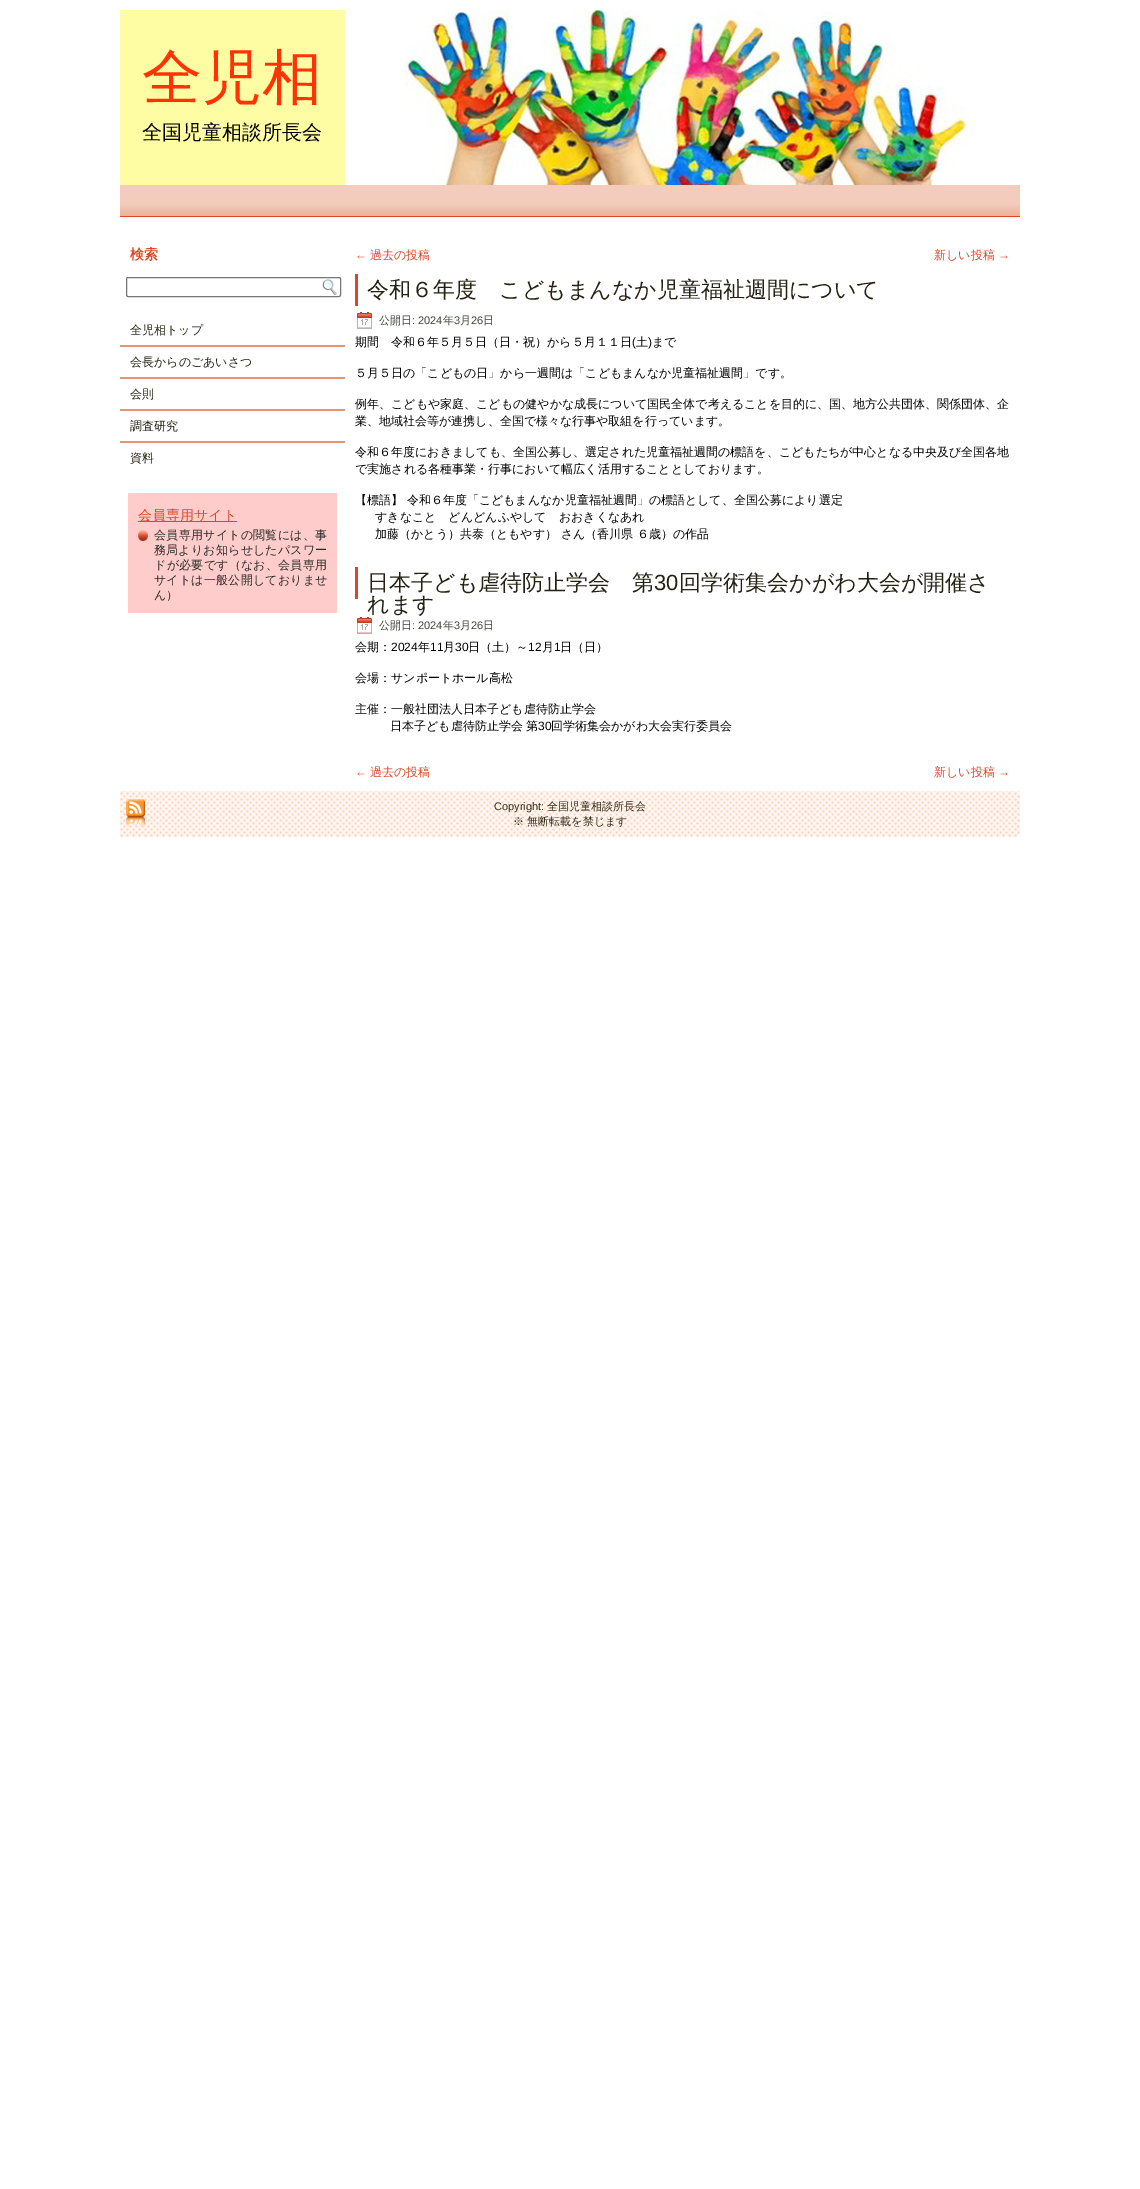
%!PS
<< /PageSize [1140 2189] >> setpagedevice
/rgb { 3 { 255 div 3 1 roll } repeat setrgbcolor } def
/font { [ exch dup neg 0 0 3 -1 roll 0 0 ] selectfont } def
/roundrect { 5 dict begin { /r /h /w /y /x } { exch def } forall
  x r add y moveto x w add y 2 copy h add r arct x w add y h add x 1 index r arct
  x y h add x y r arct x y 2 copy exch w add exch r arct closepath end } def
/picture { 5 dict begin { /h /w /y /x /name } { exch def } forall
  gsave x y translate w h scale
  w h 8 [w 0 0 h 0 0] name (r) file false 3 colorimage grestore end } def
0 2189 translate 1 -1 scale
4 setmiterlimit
255 255 255 rgb
0 0 1140 2189 rectfill
255 253 163 rgb
120 10 225 175 rectfill
(img/1.rgb) 405 10 563 175 picture
(img/2.rgb) 120 185 900 32 picture
118 118 118 rgb
126.5 277.5 214 19 1.5 roundrect stroke
(img/3.rgb) 322 279 15 16 picture
[
  [120 345 225 2 231 150 115]
  [120 377 225 2 231 150 115]
  [120 409 225 2 231 150 115]
  [120 441 225 2 231 150 115]
  [128 493 209 120 255 204 204]
  [138 521 99 1 219 71 41]
] { aload pop rgb rectfill } forall
(img/4.rgb) 138 530 10 11 picture
355 274 3 32 rectfill
(img/5.rgb) 357 312 15 17 picture
355 567 3 32 rectfill
(img/5.rgb) 357 617 15 17 picture
(img/6.rgb) 120 791 900 46 picture
(img/7.rgb) 126 799 19 28 picture
/WenQuanYiZenHei-Medium 60 font
255 51 5 rgb
142 98 moveto (全児相) show
/WenQuanYiZenHei-Medium 20 font
0 0 0 rgb
142 139 moveto (全国児童相談所長会) show
/WenQuanYiZenHei-Bold 14 font
219 71 41 rgb
130 259 moveto (検索) show
/WenQuanYiZenHei-Medium 12 font
37 34 19 rgb
[
  [(全児相トップ) 130 334]
  [(会長からのごあいさつ) 130 366]
  [(会則) 130 398]
  [(調査研究) 130 430]
  [(資料) 130 462]
] { aload pop moveto show } forall
/WenQuanYiZenHei-Medium 14 font
219 71 41 rgb
138 520 moveto (会員専用サイト) show
/WenQuanYiZenHei-Medium 12 font
40 43 38 rgb
154 539 moveto 0.25 0 (会員専用サイトの閲覧には、事) ashow
154 554 moveto 0.2 0 (務局よりお知らせしたパスワー) ashow
154 569 moveto 0.25 0 (ドが必要です（なお、会員専用) ashow
154 584 moveto 0.2 0 (サイトは一般公開しておりませ) ashow
154 599 moveto (ん）) show
/LiberationSans-Regular 12 font
219 71 41 rgb
355 259 moveto (←) show
/WenQuanYiZenHei-Medium 12 font
370 259 moveto (過去の投稿) show
934 259 moveto (新しい投稿) show
/LiberationSans-Regular 12 font
998 259 moveto (→) show
/WenQuanYiZenHei-Medium 22 font
37 34 19 rgb
367 297 moveto (令和６年度　こどもまんなか児童福祉週間について) show
/WenQuanYiZenHei-Medium 11 font
62 68 60 rgb
379 324 moveto (公開日) show
/LiberationSans-Regular 11 font
412 324 moveto (: 2024) show
/WenQuanYiZenHei-Medium 11 font
443 324 moveto (年) show
/LiberationSans-Regular 11 font
454 324 moveto (3) show
/WenQuanYiZenHei-Medium 11 font
460 324 moveto (月) show
/LiberationSans-Regular 11 font
471 324 moveto (26) show
/WenQuanYiZenHei-Medium 11 font
483 324 moveto (日) show
/WenQuanYiZenHei-Medium 12 font
0 0 0 rgb
355 346 moveto (期間　令和６年５月５日（日・祝）から５月１１日) show
/LiberationSans-Regular 12 font
632 346 moveto (\() show
/WenQuanYiZenHei-Medium 12 font
636 346 moveto (土) show
/LiberationSans-Regular 12 font
648 346 moveto (\)) show
/WenQuanYiZenHei-Medium 12 font
[
  [(まで) 652 346]
  [(５月５日の「こどもの日」から一週間は「こどもまんなか児童福祉週間」です。) 355 377]
  [(例年、こどもや家庭、こどもの健やかな成長について国民全体で考えることを目的に、国、地方公共団体、関係団体、企) 355 408]
  [(業、地域社会等が連携し、全国で様々な行事や取組を行っています。) 355 425]
  [(令和６年度におきましても、全国公募し、選定された児童福祉週間の標語を、こどもたちが中心となる中央及び全国各地) 355 456]
  [(で実施される各種事業・行事において幅広く活用することとしております。) 355 473]
  [(【標語】 令和６年度「こどもまんなか児童福祉週間」の標語として、全国公募により選定) 355 504]
  [(すきなこと　どんどんふやして　おおきくなあれ) 375 521]
  [(加藤（かとう）共泰（ともやす） さん（香川県 ６歳）の作品) 375 538]
] { aload pop moveto show } forall
/WenQuanYiZenHei-Medium 22 font
37 34 19 rgb
367 590 moveto (日本子ども虐待防止学会　第) show
/LiberationSans-Regular 22 font
654 590 moveto (30) show
/WenQuanYiZenHei-Medium 22 font
679 590 moveto (回学術集会かがわ大会が開催さ) show
367 612 moveto (れます) show
/WenQuanYiZenHei-Medium 11 font
62 68 60 rgb
379 629 moveto (公開日) show
/LiberationSans-Regular 11 font
412 629 moveto (: 2024) show
/WenQuanYiZenHei-Medium 11 font
443 629 moveto (年) show
/LiberationSans-Regular 11 font
454 629 moveto (3) show
/WenQuanYiZenHei-Medium 11 font
460 629 moveto (月) show
/LiberationSans-Regular 11 font
471 629 moveto (26) show
/WenQuanYiZenHei-Medium 11 font
483 629 moveto (日) show
/WenQuanYiZenHei-Medium 12 font
0 0 0 rgb
355 651 moveto (会期：) show
/LiberationSans-Regular 12 font
391 651 moveto (2024) show
/WenQuanYiZenHei-Medium 12 font
418 651 moveto (年) show
/LiberationSans-Regular 12 font
430 651 moveto (11) show
/WenQuanYiZenHei-Medium 12 font
443 651 moveto (月) show
/LiberationSans-Regular 12 font
455 651 moveto (30) show
/WenQuanYiZenHei-Medium 12 font
468 651 moveto (日（土）～) show
/LiberationSans-Regular 12 font
528 651 moveto (12) show
/WenQuanYiZenHei-Medium 12 font
542 651 moveto (月) show
/LiberationSans-Regular 12 font
554 651 moveto (1) show
/WenQuanYiZenHei-Medium 12 font
[
  [(日（日）) 560 651]
  [(会場：サンポートホール高松) 355 682]
  [(主催：一般社団法人日本子ども虐待防止学会) 355 713]
  [(日本子ども虐待防止学会 第) 390 730]
] { aload pop moveto show } forall
/LiberationSans-Regular 12 font
538 730 moveto (30) show
/WenQuanYiZenHei-Medium 12 font
551 730 moveto (回学術集会かがわ大会実行委員会) show
/LiberationSans-Regular 12 font
219 71 41 rgb
355 776 moveto (←) show
/WenQuanYiZenHei-Medium 12 font
370 776 moveto (過去の投稿) show
934 776 moveto (新しい投稿) show
/LiberationSans-Regular 12 font
998 776 moveto (→) show
/LiberationSans-Regular 11 font
51 46 26 rgb
494 810 moveto (Copyright:) show
/WenQuanYiZenHei-Medium 11 font
547 810 moveto (全国児童相談所長会) show
513 825 moveto (※ 無断転載を禁じます) show
showpage
